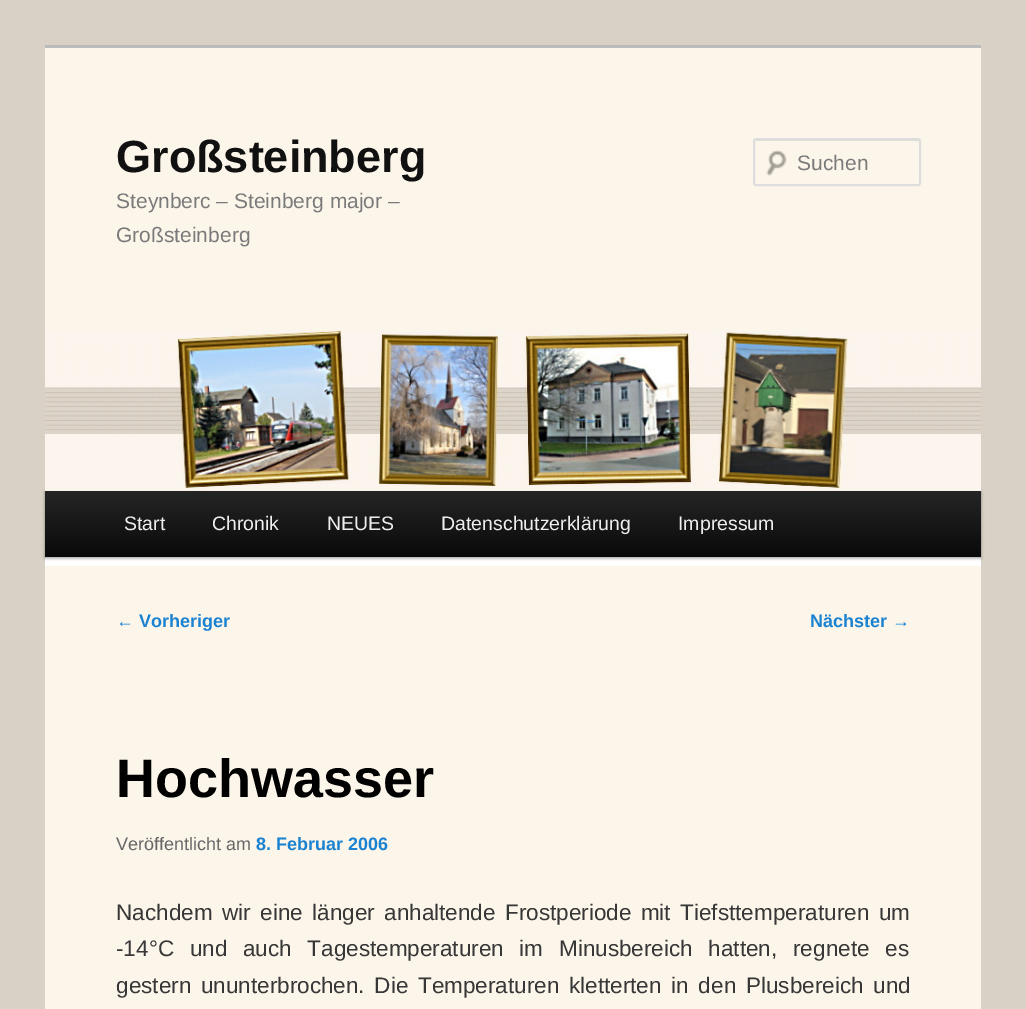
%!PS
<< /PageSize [1026 1009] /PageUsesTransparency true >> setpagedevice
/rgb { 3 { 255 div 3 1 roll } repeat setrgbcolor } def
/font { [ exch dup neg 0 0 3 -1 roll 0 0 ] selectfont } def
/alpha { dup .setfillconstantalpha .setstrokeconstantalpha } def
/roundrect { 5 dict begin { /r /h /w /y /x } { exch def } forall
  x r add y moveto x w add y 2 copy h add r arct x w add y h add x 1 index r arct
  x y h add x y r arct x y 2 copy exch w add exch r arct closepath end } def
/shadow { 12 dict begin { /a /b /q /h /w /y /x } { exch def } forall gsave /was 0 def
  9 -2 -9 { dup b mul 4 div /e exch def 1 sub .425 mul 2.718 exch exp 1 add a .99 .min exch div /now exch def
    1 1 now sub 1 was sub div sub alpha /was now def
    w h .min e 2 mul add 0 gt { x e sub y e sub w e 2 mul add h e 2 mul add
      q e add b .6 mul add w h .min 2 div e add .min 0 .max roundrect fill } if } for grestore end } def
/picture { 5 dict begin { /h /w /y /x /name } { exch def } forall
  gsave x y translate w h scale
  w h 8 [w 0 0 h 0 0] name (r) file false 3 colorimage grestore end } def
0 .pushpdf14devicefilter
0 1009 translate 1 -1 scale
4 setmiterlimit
217 209 198 rgb
0 0 1026 1009 rectfill
[
  [45 557 936 9 255 255 255]
  [45 48 936 443 252 245 234]
  [45 45 936 3 187 187 187]
] { aload pop rgb rectfill } forall
(img/1.rgb) 766 150 21 26 picture
227 221 211 rgb
756 141 moveto 918 141 lineto 919 141 920 142 920 142 curveto 920 141 lineto 919 140 lineto 756 140 lineto 755 141 lineto closepath fill
221 221 221 rgb
2 setlinewidth
754 139 166 46 2 roundrect stroke
0 0 0 rgb
45 492 936 66 0 1.5 0.4 shadow
(img/2.rgb) 45 330 936 161 picture
gsave 45 491 moveto 981 491 lineto 981 557 lineto 45 557 lineto closepath clip newpath
<< /ShadingType 2 /ColorSpace /DeviceRGB /Coords [513 490 513 557] /Extend [true true] /Function << /FunctionType 2 /Domain [0 1] /C0 [0.145 0.145 0.145] /C1 [0.039 0.039 0.039] /N 1 >> >> shfill grestore
252 245 234 rgb
45 566 936 443 rectfill
/LiberationSans-Bold 45 font
17 17 17 rgb
116 172 moveto (Großsteinberg) show
/LiberationSans-Regular 21 font
122 122 122 rgb
[
  [(Steynberc – Steinberg major –) 116 208]
  [(Großsteinberg) 116 242]
  [(Suchen) 797 170]
] { aload pop moveto show } forall
/LiberationSans-Regular 19.5 font
238 238 238 rgb
[
  [(Start) 124 530]
  [(Chronik) 212 530]
  [(NEUES) 327 530]
  [(Datenschutzerklärung) 441 530]
  [(Impressum) 678 530]
] { aload pop moveto show } forall
/LiberationSans-Regular 18 font
25 130 209 rgb
116 627 moveto (←) show
/LiberationSans-Bold 18 font
139 627 moveto (Vorheriger) show
810 627 moveto (Nächster) show
/LiberationSans-Regular 18 font
892 627 moveto (→) show
/LiberationSans-Bold 54 font
0 0 0 rgb
116 797 moveto (Hochwasser) show
/LiberationSans-Regular 18 font
102 102 102 rgb
116 850 moveto (Veröffentlicht am) show
/LiberationSans-Bold 18 font
25 130 209 rgb
256 850 moveto (8. Februar 2006) show
/LiberationSans-Regular 22.5 font
55 55 55 rgb
116 920 moveto 3.25 0 32 (Nachdem wir eine länger anhaltende Frostperiode mit Tiefsttemperaturen um) widthshow
116 956 moveto 9.5 0 32 (-14°C und auch Tagestemperaturen im Minusbereich hatten, regnete es) widthshow
116 993 moveto 3.5 0 32 (gestern ununterbrochen. Die Temperaturen kletterten in den Plusbereich und) widthshow
.poppdf14devicefilter showpage
